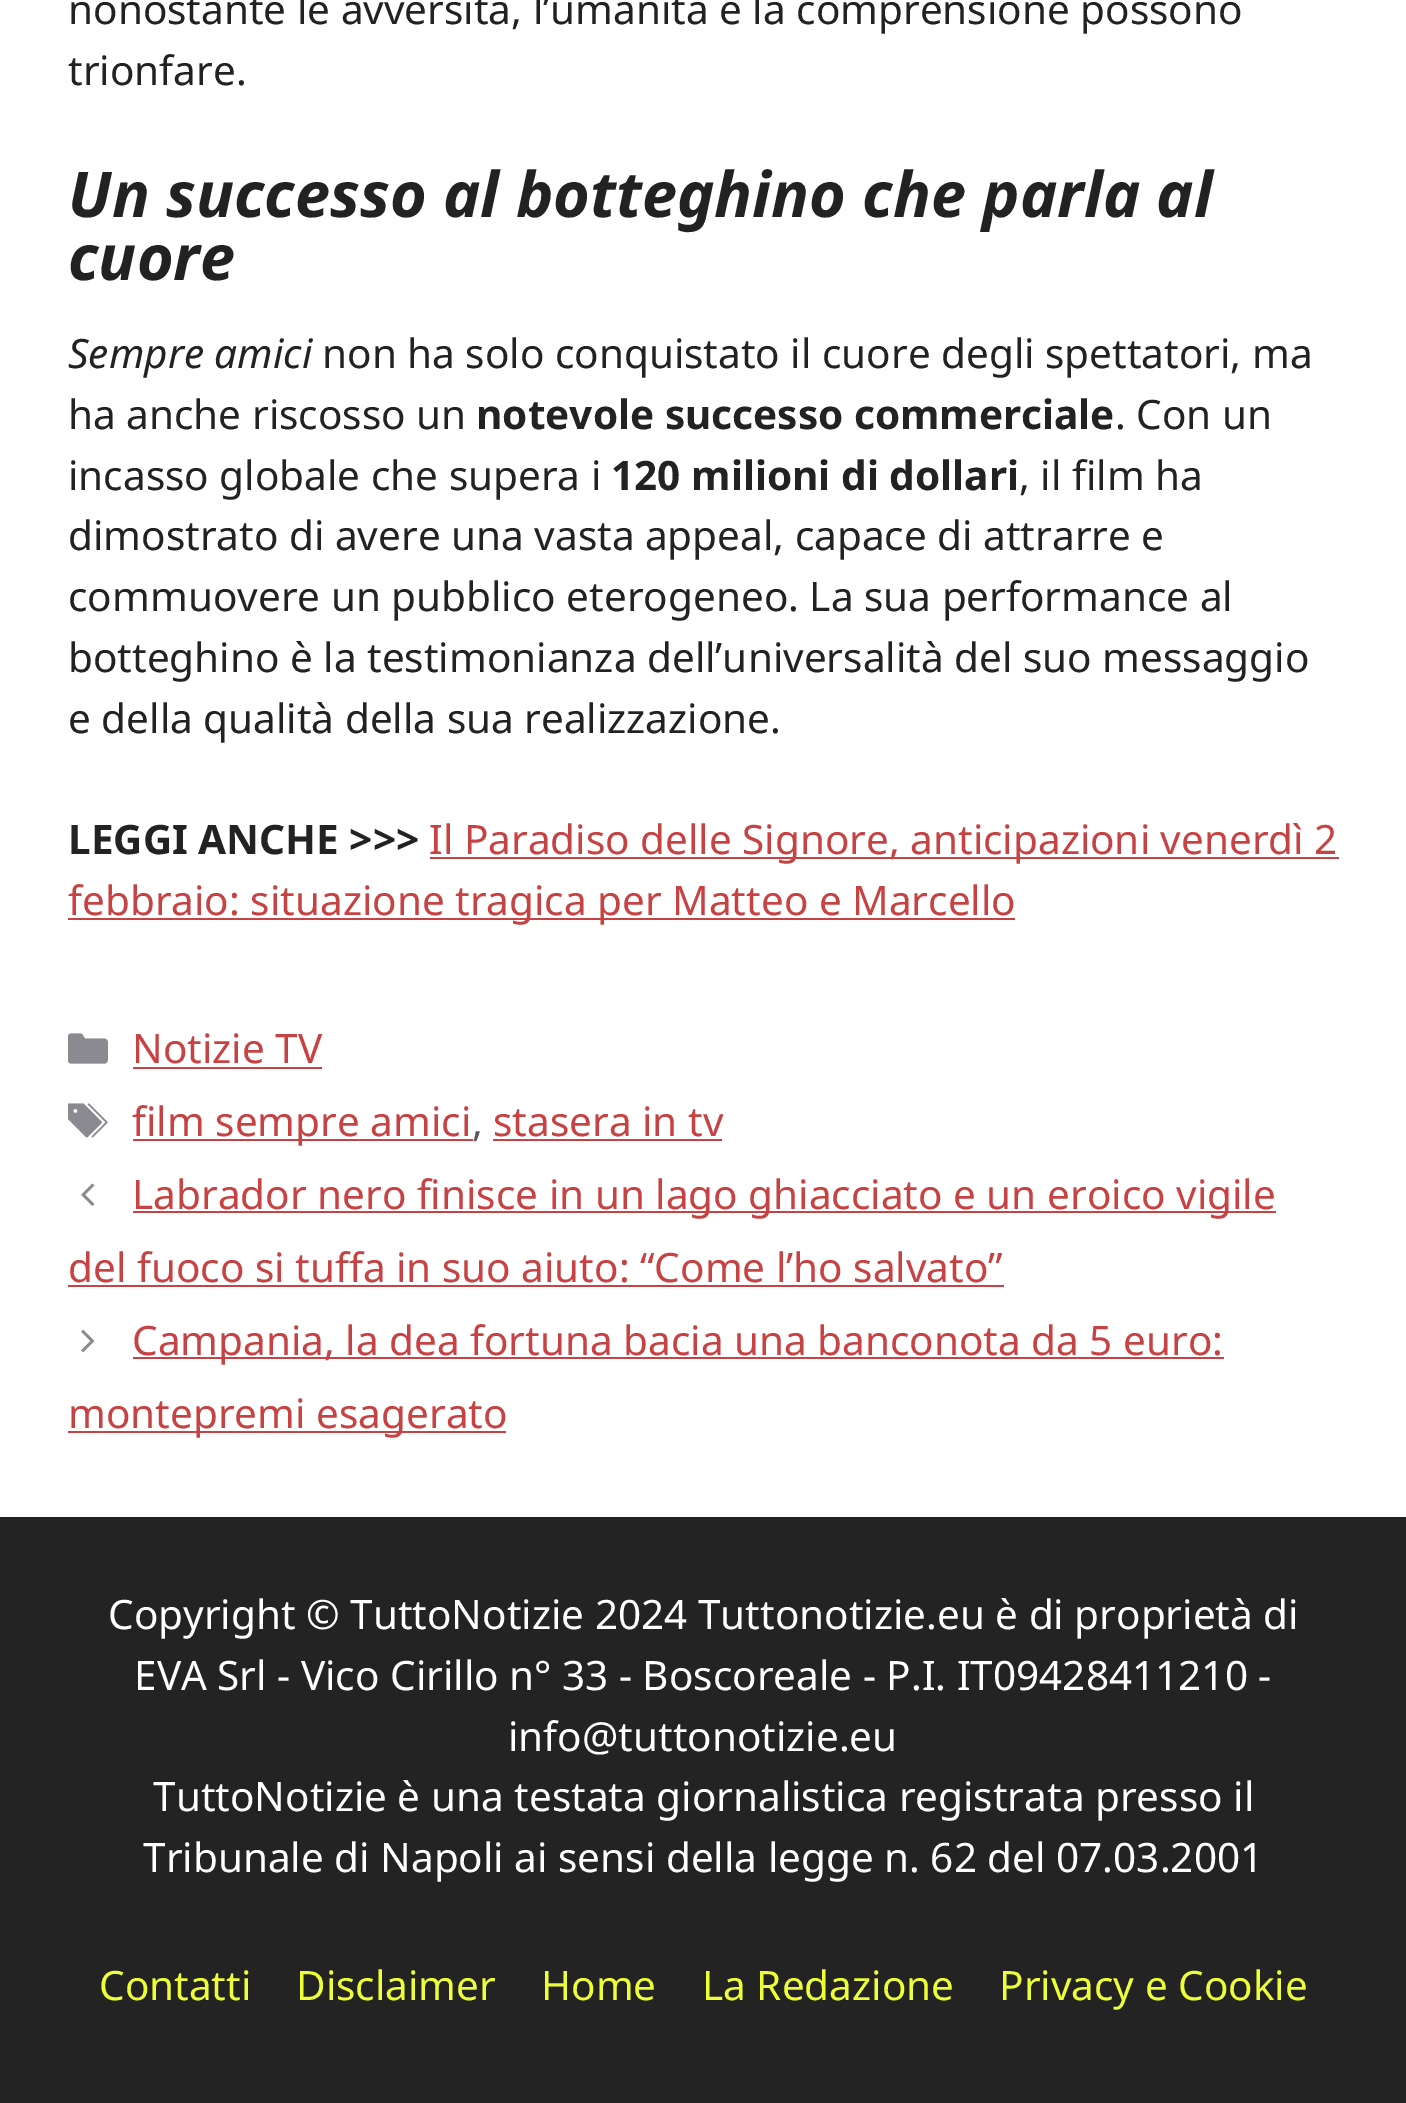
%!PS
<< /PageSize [1406 2103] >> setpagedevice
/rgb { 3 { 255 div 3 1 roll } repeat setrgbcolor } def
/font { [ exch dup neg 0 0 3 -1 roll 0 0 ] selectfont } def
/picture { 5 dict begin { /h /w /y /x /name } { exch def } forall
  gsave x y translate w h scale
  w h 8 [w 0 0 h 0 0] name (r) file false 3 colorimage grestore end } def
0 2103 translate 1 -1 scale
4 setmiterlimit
255 255 255 rgb
0 0 1406 2103 rectfill
199 67 67 rgb
430 857 909 2 rectfill
68 918 947 2 rectfill
(img/1.rgb) 68 1033 40 31 picture
133 1067 189 2 rectfill
(img/2.rgb) 68 1103 40 35 picture
133 1139 340 2 rectfill
493 1139 229 2 rectfill
(img/3.rgb) 81 1183 14 23 picture
133 1211 1143 2 rectfill
68 1285 936 2 rectfill
(img/4.rgb) 81 1329 14 24 picture
[
  [133 1357 1091 2 199 67 67]
  [68 1431 438 2 199 67 67]
  [0 1517 1406 586 35 35 35]
] { aload pop rgb rectfill } forall
/NotoSans-Regular 40.5 font
34 34 34 rgb
68 24 moveto (nonostante le avversità, l’umanità e la comprensione possono) show
68 85 moveto (trionfare.) show
/NotoSans-BoldItalic 63 font
68 217 moveto (Un successo al botteghino che parla al) show
68 280 moveto (cuore) show
/NotoSans-Italic 40.5 font
68 368 moveto (Sempre amici) show
/NotoSans-Regular 40.5 font
322 368 moveto (non ha solo conquistato il cuore degli spettatori, ma) show
68 429 moveto (ha anche riscosso un) show
/NotoSans-Bold 40.5 font
476 429 moveto (notevole successo commerciale) show
/NotoSans-Regular 40.5 font
1115 429 moveto (. Con un) show
68 490 moveto (incasso globale che supera i) show
/NotoSans-Bold 40.5 font
611 490 moveto (120 milioni di dollari) show
/NotoSans-Regular 40.5 font
[
  [(, il film ha) 1019 490]
  [(dimostrato di avere una vasta appeal, capace di attrarre e) 68 550]
  [(commuovere un pubblico eterogeneo. La sua performance al) 68 611]
  [(botteghino è la testimonianza dell’universalità del suo messaggio) 68 672]
  [(e della qualità della sua realizzazione.) 68 733]
] { aload pop moveto show } forall
/NotoSans-Bold 40.5 font
68 854 moveto (LEGGI ANCHE >>>) show
/NotoSans-Regular 40.5 font
199 67 67 rgb
[
  [(Il Paradiso delle Signore, anticipazioni venerdì 2) 429 854]
  [(febbraio: situazione tragica per Matteo e Marcello) 68 915]
  [(Notizie TV) 132 1063]
  [(film sempre amici) 132 1136]
] { aload pop moveto show } forall
87 87 96 rgb
472 1136 moveto (,) show
199 67 67 rgb
[
  [(stasera in tv) 493 1136]
  [(Labrador nero finisce in un lago ghiacciato e un eroico vigile) 132 1209]
  [(del fuoco si tuffa in suo aiuto: “Come l’ho salvato”) 68 1282]
  [(Campania, la dea fortuna bacia una banconota da 5 euro:) 132 1355]
  [(montepremi esagerato) 68 1428]
] { aload pop moveto show } forall
255 255 255 rgb
[
  [(Copyright © TuttoNotizie 2024 Tuttonotizie.eu è di proprietà di) 108 1629]
  [(EVA Srl - Vico Cirillo n° 33 - Boscoreale - P.I. IT09428411210 -) 134 1690]
  [(info@tuttonotizie.eu) 508 1751]
  [(TuttoNotizie è una testata giornalistica registrata presso il) 153 1811]
  [(Tribunale di Napoli ai sensi della legge n. 62 del 07.03.2001) 143 1872]
] { aload pop moveto show } forall
237 255 53 rgb
[
  [(Contatti) 99 2000]
  [(Disclaimer) 296 2000]
  [(Home) 541 2000]
  [(La Redazione) 702 2000]
  [(Privacy e Cookie) 999 2000]
] { aload pop moveto show } forall
showpage
